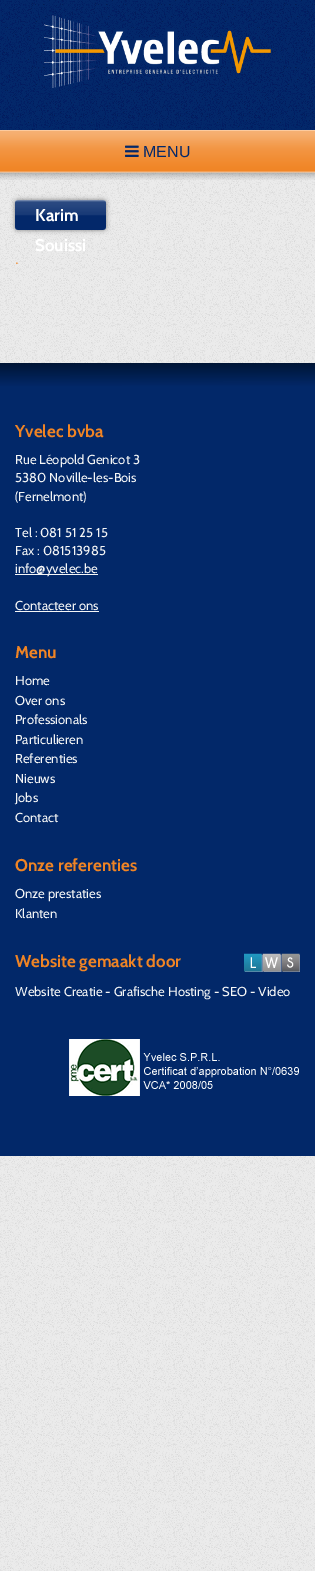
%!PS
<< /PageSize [315 1571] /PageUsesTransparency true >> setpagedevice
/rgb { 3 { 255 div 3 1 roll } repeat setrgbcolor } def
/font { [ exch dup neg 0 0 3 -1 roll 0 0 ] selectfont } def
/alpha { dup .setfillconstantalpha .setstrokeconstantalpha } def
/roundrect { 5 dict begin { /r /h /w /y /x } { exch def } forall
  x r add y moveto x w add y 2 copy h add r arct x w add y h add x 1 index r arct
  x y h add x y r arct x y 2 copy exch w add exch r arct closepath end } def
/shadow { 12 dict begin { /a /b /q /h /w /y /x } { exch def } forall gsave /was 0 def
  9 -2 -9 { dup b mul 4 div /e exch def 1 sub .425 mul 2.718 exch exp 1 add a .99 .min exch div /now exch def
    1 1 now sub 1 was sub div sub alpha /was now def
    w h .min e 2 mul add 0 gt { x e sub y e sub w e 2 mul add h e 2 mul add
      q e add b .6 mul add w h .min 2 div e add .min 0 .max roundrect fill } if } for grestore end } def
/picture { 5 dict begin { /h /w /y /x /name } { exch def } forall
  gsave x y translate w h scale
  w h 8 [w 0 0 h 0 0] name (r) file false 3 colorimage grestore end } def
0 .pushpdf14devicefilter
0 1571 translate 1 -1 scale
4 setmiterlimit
255 255 255 rgb
0 0 315 1571 rectfill
(img/1.rgb) 0 172 315 1399 picture
(img/2.rgb) 0 0 315 130 picture
(img/3.rgb) 44 15 227 73 picture
(img/4.rgb) 0 130 315 50 picture
(img/5.rgb) 125 145 14 12 picture
130 130 130 rgb
15 200 91 30 3 2.5 1 shadow
(img/6.rgb) 15 200 91 30 picture
gsave 0 363 moveto 315 363 lineto 315 1156 lineto 0 1156 lineto closepath clip newpath
<< /ShadingType 2 /ColorSpace /DeviceRGB /Coords [157 363 158 1156] /Extend [true true] /Function << /FunctionType 3 /Domain [0 1] /Functions [<< /FunctionType 2 /Domain [0 1] /C0 [0 0.082 0.208] /C1 [0.008 0.157 0.412] /N 1 >> << /FunctionType 2 /Domain [0 1] /C0 [0.008 0.157 0.412] /C1 [0.008 0.157 0.412] /N 1 >>] /Bounds [0.03] /Encode [0 1 0 1] >> >> shfill grestore
245 246 246 rgb
15 574 83 1 rectfill
15 611 84 1 rectfill
(img/7.rgb) 244 953 56 19 picture
(img/8.rgb) 69 1039 230 57 picture
/LiberationSans-Regular 16 font
3 40 106 rgb
143 157 moveto (MENU) show
/Cabin-Bold 17 font
255 255 255 rgb
35 221 moveto (Karim) show
35 251 moveto (Souissi) show
/LiberationSans-Regular 14 font
240 132 36 rgb
15 264 moveto (.) show
/Cabin-Bold 17 font
15 437 moveto (Yvelec bvba) show
/Cabin-Regular 13 font
245 246 246 rgb
[
  [(Rue Léopold Genicot 3) 15 464]
  [(5380 Noville-les-Bois) 15 482]
  [(\(Fernelmont\)) 15 501]
  [(Tel : 081 51 25 15) 15 537]
  [(Fax : 081513985) 15 555]
  [(info@yvelec.be) 15 573]
  [(Contacteer ons) 15 610]
] { aload pop moveto show } forall
/Cabin-Bold 17 font
240 132 36 rgb
15 658 moveto (Menu) show
/Cabin-Regular 13 font
245 246 246 rgb
[
  [(Home) 15 685]
  [(Over ons) 15 705]
  [(Professionals) 15 724]
  [(Particulieren) 15 744]
  [(Referenties) 15 763]
  [(Nieuws) 15 783]
  [(Jobs) 15 802]
  [(Contact) 15 822]
] { aload pop moveto show } forall
/Cabin-Bold 17 font
240 132 36 rgb
15 871 moveto (Onze referenties) show
/Cabin-Regular 13 font
245 246 246 rgb
15 898 moveto (Onze prestaties) show
15 918 moveto (Klanten) show
/Cabin-Bold 17 font
240 132 36 rgb
15 967 moveto (Website gemaakt door) show
/Cabin-Regular 13 font
245 246 246 rgb
15 996 moveto (Website Creatie - Grafische Hosting - SEO - Video) show
.poppdf14devicefilter showpage
